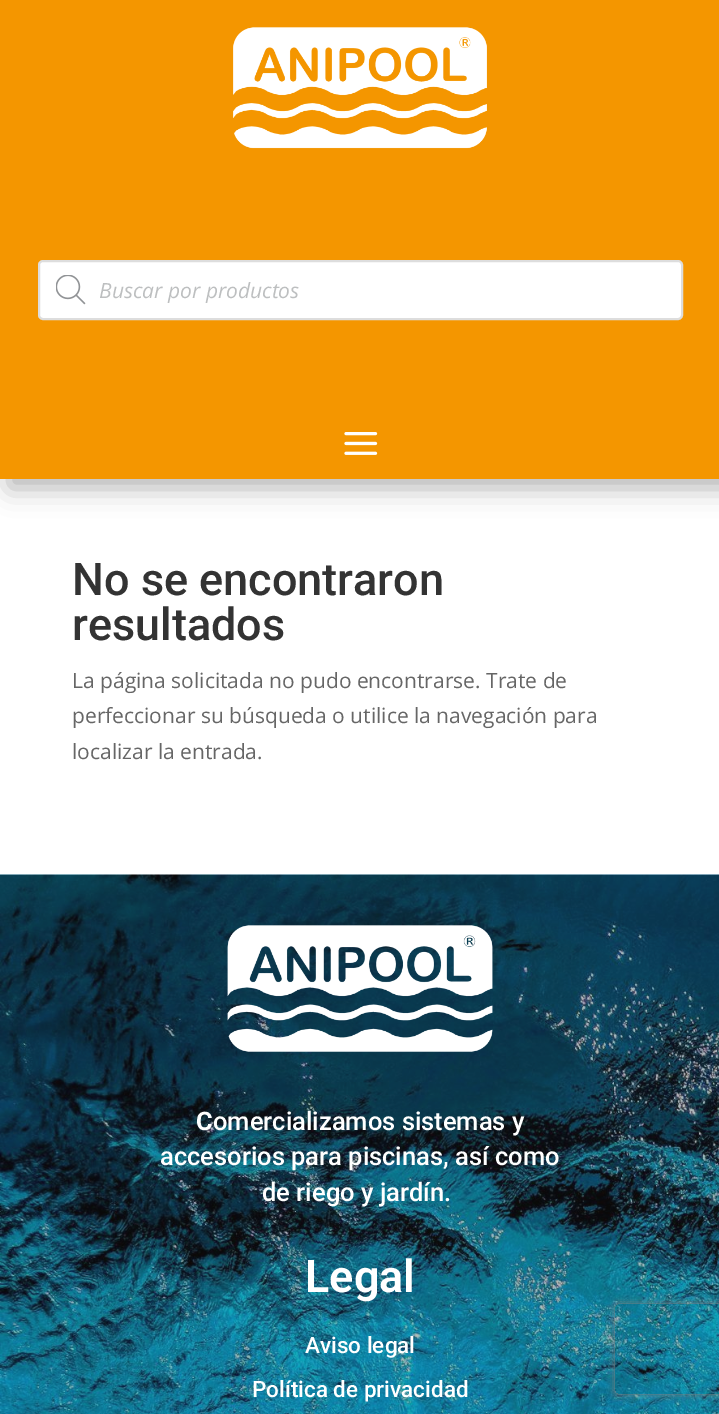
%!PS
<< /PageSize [719 1414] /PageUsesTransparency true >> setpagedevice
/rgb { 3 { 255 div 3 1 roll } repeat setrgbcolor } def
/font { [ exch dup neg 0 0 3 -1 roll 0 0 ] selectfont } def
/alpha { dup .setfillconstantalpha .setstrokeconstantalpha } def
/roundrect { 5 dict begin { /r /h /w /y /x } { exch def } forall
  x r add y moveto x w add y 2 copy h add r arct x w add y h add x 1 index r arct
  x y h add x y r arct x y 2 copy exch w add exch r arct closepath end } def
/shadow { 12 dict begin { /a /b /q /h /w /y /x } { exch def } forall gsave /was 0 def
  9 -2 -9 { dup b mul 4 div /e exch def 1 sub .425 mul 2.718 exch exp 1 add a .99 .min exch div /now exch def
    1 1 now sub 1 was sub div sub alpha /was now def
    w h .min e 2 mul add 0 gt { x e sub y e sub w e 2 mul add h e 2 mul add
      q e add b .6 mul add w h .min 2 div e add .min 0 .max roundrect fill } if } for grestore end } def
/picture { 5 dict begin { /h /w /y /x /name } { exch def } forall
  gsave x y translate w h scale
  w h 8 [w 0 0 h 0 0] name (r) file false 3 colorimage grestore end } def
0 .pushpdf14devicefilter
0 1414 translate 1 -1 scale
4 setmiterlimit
255 255 255 rgb
0 0 719 1414 rectfill
0 0 0 rgb
9 5 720 483 0 13.5 0.3 shadow
244 150 0 rgb
0 0 719 479 rectfill
(img/1.rgb) 233 27 254 122 picture
255 255 255 rgb
39 261 643 58 4 roundrect gsave fill grestore
221 221 221 rgb
2 setlinewidth
stroke
(img/2.rgb) 56 275 30 30 picture
(img/3.rgb) 344 432 34 23 picture
(img/4.rgb) 0 874 719 540 picture
(img/5.rgb) 227 925 266 127 picture
gsave
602 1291 moveto 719 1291 lineto 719 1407 lineto 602 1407 lineto closepath 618 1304 moveto 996 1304 lineto 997.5 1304 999 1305.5 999 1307 curveto 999 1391 lineto 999 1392.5 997.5 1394 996 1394 curveto 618 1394 lineto 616.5 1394 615 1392.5 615 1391 curveto 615 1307 lineto 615 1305.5 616.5 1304 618 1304 curveto closepath eoclip newpath
128 128 128 rgb
615 1304 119 90 3 4 1 shadow
grestore
/OpenSans-Italic 21 font
189 191 192 rgb
99 298 moveto (Buscar por productos) show
/Roboto-Medium 45 font
51 51 51 rgb
72 595 moveto (No se encontraron) show
72 640 moveto (resultados) show
/OpenSans-Regular 21 font
102 102 102 rgb
[
  [(La página solicitada no pudo encontrarse. Trate de) 72 688]
  [(perfeccionar su búsqueda o utilice la navegación para) 72 723]
  [(localizar la entrada.) 72 759]
] { aload pop moveto show } forall
/Roboto-Bold 25.5 font
255 255 255 rgb
196 1130 moveto (C) show
/Roboto-Medium 25.5 font
[
  [(omercializamos sistemas y) 213 1130]
  [(accesorios para piscinas, así como) 160 1165]
  [(de riego y jardín.) 262 1201]
] { aload pop moveto show } forall
/Roboto-SemiBold 45 font
305 1292 moveto (Legal) show
/Roboto-Medium 22.5 font
305 1353 moveto (Aviso legal) show
252 1397 moveto (Política de privacidad) show
.poppdf14devicefilter showpage
